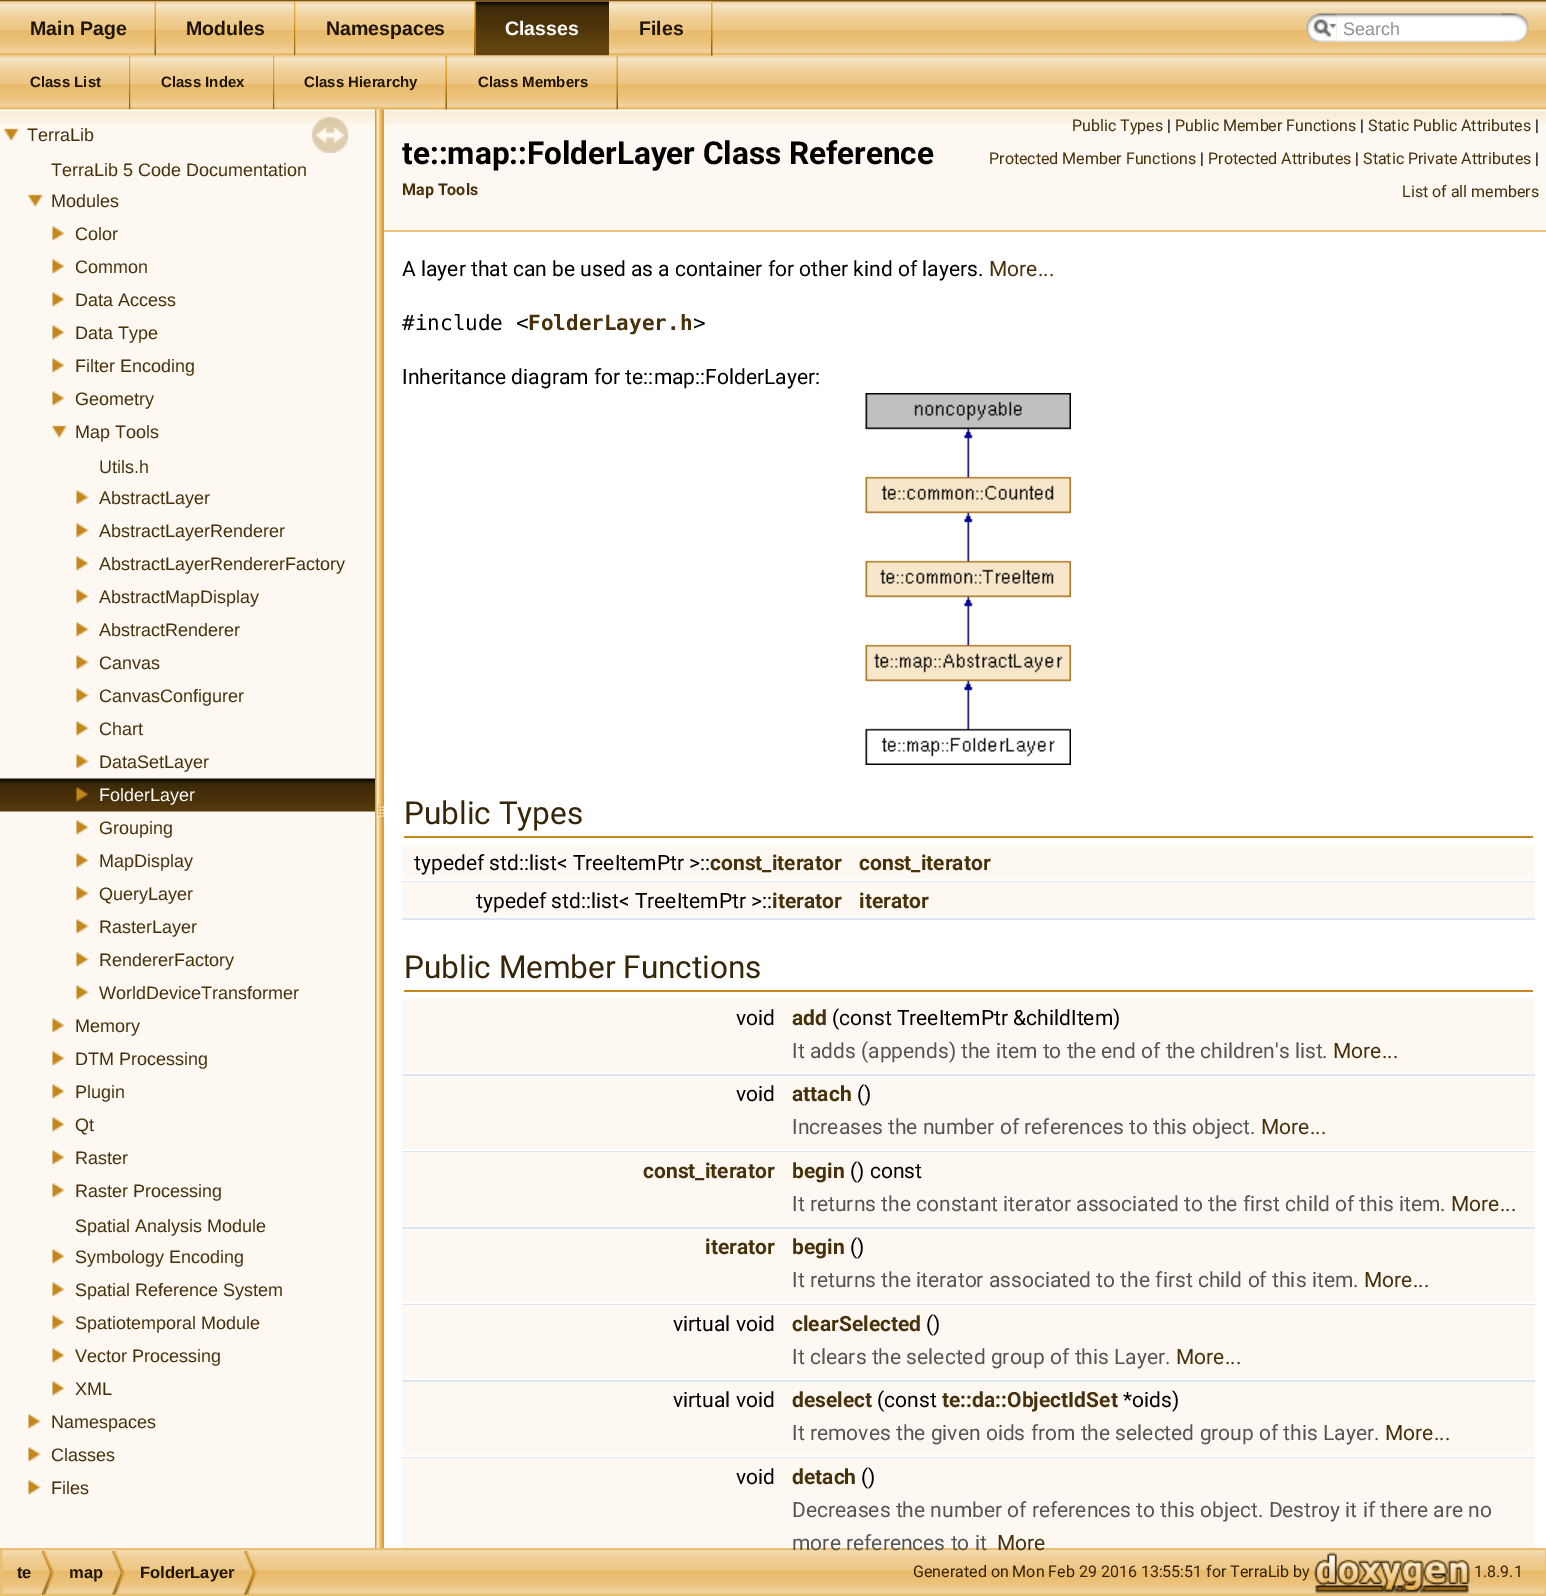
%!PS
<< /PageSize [1546 1596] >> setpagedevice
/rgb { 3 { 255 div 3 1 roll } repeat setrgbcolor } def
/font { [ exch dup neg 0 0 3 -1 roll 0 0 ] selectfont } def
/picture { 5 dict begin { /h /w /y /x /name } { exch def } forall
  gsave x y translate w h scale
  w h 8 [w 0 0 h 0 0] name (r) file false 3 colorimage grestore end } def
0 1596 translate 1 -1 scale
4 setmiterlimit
255 255 255 rgb
0 0 1546 1596 rectfill
121 83 17 rgb
0 0 1546 2 rectfill
(img/1.rgb) 0 1 1546 55 picture
(img/14.rgb) 0 55 1546 55 picture
(img/2.rgb) 0 1 156 55 picture
(img/3.rgb) 154 1 2 55 picture
(img/4.rgb) 156 1 140 55 picture
(img/5.rgb) 294 1 2 55 picture
(img/6.rgb) 295 1 181 55 picture
(img/5.rgb) 474 1 2 55 picture
(img/7.rgb) 475 1 134 55 picture
(img/8.rgb) 475 1 134 55 picture
(img/9.rgb) 609 1 104 55 picture
(img/5.rgb) 711 1 2 55 picture
(img/10.rgb) 1306 13 31 29 picture
(img/11.rgb) 1313 19 24 19 picture
(img/12.rgb) 1336 13 176 29 picture
(img/13.rgb) 1501 13 28 29 picture
(img/15.rgb) 0 55 131 55 picture
(img/16.rgb) 129 55 2 55 picture
(img/17.rgb) 130 55 145 55 picture
(img/16.rgb) 273 55 2 55 picture
(img/18.rgb) 274 55 173 55 picture
(img/19.rgb) 445 55 2 55 picture
(img/20.rgb) 447 55 171 55 picture
(img/19.rgb) 616 55 2 55 picture
253 248 241 rgb
0 125 375 1423 rectfill
(img/21.rgb) 0 109 375 16 picture
(img/22.rgb) 312 117 36 36 picture
(img/23.rgb) 4 128 15 14 picture
(img/23.rgb) 28 194 15 14 picture
(img/24.rgb) 52 226 13 15 picture
(img/24.rgb) 52 259 13 15 picture
(img/24.rgb) 52 292 13 15 picture
(img/24.rgb) 52 325 13 15 picture
(img/24.rgb) 52 358 13 15 picture
(img/24.rgb) 52 391 13 15 picture
(img/23.rgb) 52 425 15 14 picture
(img/24.rgb) 76 490 13 15 picture
(img/24.rgb) 76 523 13 15 picture
(img/24.rgb) 76 556 13 15 picture
(img/24.rgb) 76 589 13 15 picture
(img/24.rgb) 76 622 13 15 picture
(img/24.rgb) 76 655 13 15 picture
(img/24.rgb) 76 688 13 15 picture
(img/24.rgb) 76 721 13 15 picture
(img/24.rgb) 76 754 13 15 picture
(img/25.rgb) 0 778 375 34 picture
(img/26.rgb) 76 787 13 15 picture
(img/24.rgb) 76 820 13 15 picture
(img/24.rgb) 76 853 13 15 picture
(img/24.rgb) 76 886 13 15 picture
(img/24.rgb) 76 919 13 15 picture
(img/24.rgb) 76 952 13 15 picture
(img/24.rgb) 76 985 13 15 picture
(img/24.rgb) 52 1018 13 15 picture
(img/24.rgb) 52 1051 13 15 picture
(img/24.rgb) 52 1084 13 15 picture
(img/24.rgb) 52 1117 13 15 picture
(img/24.rgb) 52 1150 13 15 picture
(img/24.rgb) 52 1183 13 15 picture
(img/24.rgb) 52 1249 13 15 picture
(img/24.rgb) 52 1282 13 15 picture
(img/24.rgb) 52 1315 13 15 picture
(img/24.rgb) 52 1348 13 15 picture
(img/24.rgb) 52 1381 13 15 picture
(img/24.rgb) 28 1414 13 15 picture
(img/24.rgb) 28 1447 13 15 picture
(img/24.rgb) 28 1480 13 15 picture
(img/27.rgb) 375 109 9 1439 picture
384 125 1162 105 rectfill
(img/28.rgb) 384 109 1162 16 picture
235 194 122 rgb
384 230 1162 2 rectfill
(img/29.rgb) 865 393 206 372 picture
[
  [404 836 1129 2 198 136 28]
  [402 845 1133 34 253 248 241]
  [402 881 1133 1 222 228 240]
  [402 882 1133 35 253 248 241]
  [402 918 1133 2 222 228 240]
  [404 990 1129 2 198 136 28]
  [402 999 1133 35 253 248 241]
  [402 1034 1133 39 253 248 241]
  [402 1074 1133 2 222 228 240]
  [402 1076 1133 34 253 248 241]
  [402 1110 1133 39 253 248 241]
  [402 1151 1133 1 222 228 240]
  [402 1152 1133 35 253 248 241]
  [402 1187 1133 39 253 248 241]
  [402 1227 1133 2 222 228 240]
  [402 1229 1133 34 253 248 241]
  [402 1263 1133 39 253 248 241]
  [402 1304 1133 1 222 228 240]
  [402 1305 1133 35 253 248 241]
  [402 1340 1133 39 253 248 241]
  [402 1380 1133 2 222 228 240]
  [402 1382 1133 34 253 248 241]
  [402 1416 1133 39 253 248 241]
  [402 1457 1133 1 222 228 240]
  [402 1458 1133 35 253 248 241]
  [402 1493 1133 55 253 248 241]
] { aload pop rgb rectfill } forall
(img/30.rgb) 2 1550 1543 44 picture
235 192 117 rgb
2 setlinewidth
1 1549 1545 46 rectstroke
(img/31.rgb) 42 1551 12 44 picture
(img/32.rgb) 112 1551 13 44 picture
(img/32.rgb) 244 1551 13 44 picture
(img/33.rgb) 1314 1552 156 42 picture
/LiberationSans-Bold 19.5 font
31 21 4 rgb
[
  [(Main Page) 30 35]
  [(Modules) 186 35]
  [(Namespaces) 326 35]
] { aload pop moveto show } forall
255 255 255 rgb
505 35 moveto (Classes) show
31 21 4 rgb
639 35 moveto (Files) show
/LiberationSans-Regular 18 font
144 144 144 rgb
1343 35 moveto (Search) show
/LiberationSans-Bold 15 font
31 21 4 rgb
[
  [(Class List) 30 87]
  [(Class Index) 161 87]
  [(Class Hierarchy) 304 87]
  [(Class Members) 478 87]
] { aload pop moveto show } forall
/LiberationSans-Regular 18 font
71 48 10 rgb
[
  [(TerraLib) 27 141]
  [(TerraLib 5 Code Documentation) 51 176]
  [(Modules) 51 207]
  [(Color) 75 240]
  [(Common) 75 273]
  [(Data Access) 75 306]
  [(Data Type) 75 339]
  [(Filter Encoding) 75 372]
  [(Geometry) 75 405]
  [(Map Tools) 75 438]
  [(Utils.h) 99 473]
  [(AbstractLayer) 99 504]
  [(AbstractLayerRenderer) 99 537]
  [(AbstractLayerRendererFactory) 99 570]
  [(AbstractMapDisplay) 99 603]
  [(AbstractRenderer) 99 636]
  [(Canvas) 99 669]
  [(CanvasConfigurer) 99 702]
  [(Chart) 99 735]
  [(DataSetLayer) 99 768]
] { aload pop moveto show } forall
255 255 255 rgb
99 801 moveto (FolderLayer) show
71 48 10 rgb
[
  [(Grouping) 99 834]
  [(MapDisplay) 99 867]
  [(QueryLayer) 99 900]
  [(RasterLayer) 99 933]
  [(RendererFactory) 99 966]
  [(WorldDeviceTransformer) 99 999]
  [(Memory) 75 1032]
  [(DTM Processing) 75 1065]
  [(Plugin) 75 1098]
  [(Qt) 75 1131]
  [(Raster) 75 1164]
  [(Raster Processing) 75 1197]
  [(Spatial Analysis Module) 75 1232]
  [(Symbology Encoding) 75 1263]
  [(Spatial Reference System) 75 1296]
  [(Spatiotemporal Module) 75 1329]
  [(Vector Processing) 75 1362]
  [(XML) 75 1395]
  [(Namespaces) 51 1428]
  [(Classes) 51 1461]
  [(Files) 51 1494]
] { aload pop moveto show } forall
/Roboto-Bold 31.5 font
0 0 0 rgb
402 164 moveto (te::map::FolderLayer Class Reference) show
/Roboto-Bold 16 font
71 48 10 rgb
402 195 moveto (Map Tools) show
/Roboto-Regular 16 font
1072 131 moveto (Public Types) show
0 0 0 rgb
1167 131 moveto (|) show
71 48 10 rgb
1175 131 moveto (Public Member Functions) show
0 0 0 rgb
1360 131 moveto (|) show
71 48 10 rgb
1368 131 moveto (Static Public Attributes) show
0 0 0 rgb
1535 131 moveto (|) show
71 48 10 rgb
989 164 moveto (Protected Member Functions) show
0 0 0 rgb
1200 164 moveto (|) show
71 48 10 rgb
1208 164 moveto (Protected Attributes) show
0 0 0 rgb
1355 164 moveto (|) show
71 48 10 rgb
1363 164 moveto (Static Private Attributes) show
0 0 0 rgb
1535 164 moveto (|) show
71 48 10 rgb
1402 197 moveto (List of all members) show
/Roboto-Regular 21 font
0 0 0 rgb
402 276 moveto (A layer that can be used as a container for other kind of layers.) show
71 48 10 rgb
989 276 moveto (More...) show
/DejaVuSansMono-Regular 21 font
0 0 0 rgb
402 330 moveto (#include <) show
/DejaVuSansMono-Bold 21 font
71 48 10 rgb
528 330 moveto (FolderLayer.h) show
/DejaVuSansMono-Regular 21 font
0 0 0 rgb
693 330 moveto (>) show
/Roboto-Regular 21 font
402 384 moveto (Inheritance diagram for te::map::FolderLayer:) show
/Roboto-Regular 31.5 font
55 37 7 rgb
404 824 moveto (Public Types) show
/Roboto-Regular 21 font
0 0 0 rgb
414 870 moveto (typedef std::list< TreeItemPtr >::) show
/Roboto-Bold 21 font
71 48 10 rgb
710 870 moveto (const_iterator) show
859 870 moveto (const_iterator) show
/Roboto-Regular 21 font
0 0 0 rgb
476 908 moveto (typedef std::list< TreeItemPtr >::) show
/Roboto-Bold 21 font
71 48 10 rgb
772 908 moveto (iterator) show
859 908 moveto (iterator) show
/Roboto-Regular 31.5 font
55 37 7 rgb
404 978 moveto (Public Member Functions) show
/Roboto-Regular 21 font
0 0 0 rgb
736 1025 moveto (void) show
/Roboto-Bold 21 font
71 48 10 rgb
792 1025 moveto (add) show
/Roboto-Regular 21 font
0 0 0 rgb
832 1025 moveto (\(const TreeItemPtr &childItem\)) show
85 85 85 rgb
792 1058 moveto (It adds \(appends\) the item to the end of the children's list.) show
71 48 10 rgb
1333 1058 moveto (More...) show
0 0 0 rgb
736 1101 moveto (void) show
/Roboto-Bold 21 font
71 48 10 rgb
792 1101 moveto (attach) show
/Roboto-Regular 21 font
0 0 0 rgb
857 1101 moveto (\(\)) show
85 85 85 rgb
792 1134 moveto (Increases the number of references to this object.) show
71 48 10 rgb
1261 1134 moveto (More...) show
/Roboto-Bold 21 font
643 1178 moveto (const_iterator) show
792 1178 moveto (begin) show
/Roboto-Regular 21 font
0 0 0 rgb
850 1178 moveto (\(\) const) show
85 85 85 rgb
792 1211 moveto (It returns the constant iterator associated to the first child of this item.) show
71 48 10 rgb
1451 1211 moveto (More...) show
/Roboto-Bold 21 font
705 1254 moveto (iterator) show
792 1254 moveto (begin) show
/Roboto-Regular 21 font
0 0 0 rgb
850 1254 moveto (\(\)) show
85 85 85 rgb
792 1287 moveto (It returns the iterator associated to the first child of this item.) show
71 48 10 rgb
1364 1287 moveto (More...) show
0 0 0 rgb
673 1331 moveto (virtual void) show
/Roboto-Bold 21 font
71 48 10 rgb
792 1331 moveto (clearSelected) show
/Roboto-Regular 21 font
0 0 0 rgb
926 1331 moveto (\(\)) show
85 85 85 rgb
792 1364 moveto (It clears the selected group of this Layer.) show
71 48 10 rgb
1176 1364 moveto (More...) show
0 0 0 rgb
673 1407 moveto (virtual void) show
/Roboto-Bold 21 font
71 48 10 rgb
792 1407 moveto (deselect) show
/Roboto-Regular 21 font
0 0 0 rgb
877 1407 moveto (\(const) show
/Roboto-Bold 21 font
71 48 10 rgb
942 1407 moveto (te::da::ObjectIdSet) show
/Roboto-Regular 21 font
0 0 0 rgb
1123 1407 moveto (*oids\)) show
85 85 85 rgb
792 1440 moveto (It removes the given oids from the selected group of this Layer.) show
71 48 10 rgb
1385 1440 moveto (More...) show
0 0 0 rgb
736 1484 moveto (void) show
/Roboto-Bold 21 font
71 48 10 rgb
792 1484 moveto (detach) show
/Roboto-Regular 21 font
0 0 0 rgb
861 1484 moveto (\(\)) show
85 85 85 rgb
792 1517 moveto (Decreases the number of references to this object. Destroy it if there are no) show
792 1550 moveto (more references to it) show
71 48 10 rgb
997 1550 moveto (More) show
/LiberationSans-Bold 16.5 font
31 21 4 rgb
[
  [(te) 17 1578]
  [(map) 69 1578]
  [(FolderLayer) 140 1578]
] { aload pop moveto show } forall
/Roboto-Regular 16 font
55 37 7 rgb
913 1577 moveto (Generated on Mon Feb 29 2016 13:55:51 for TerraLib by) show
1474 1577 moveto (1.8.9.1) show
showpage
